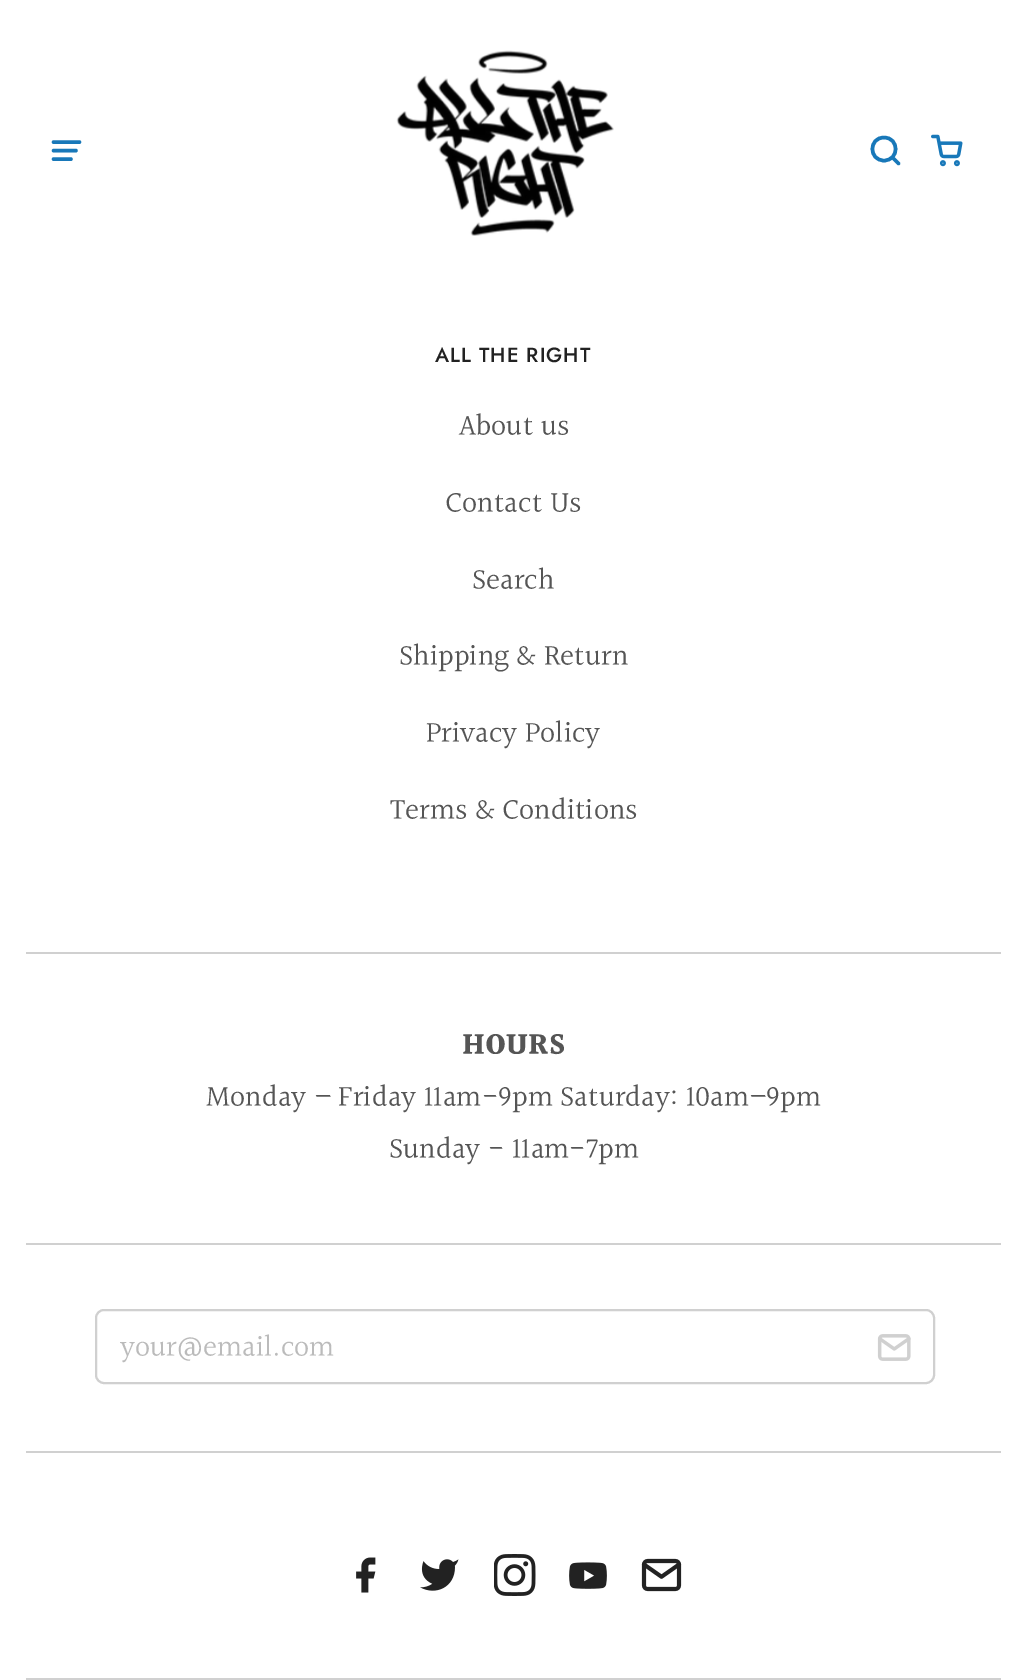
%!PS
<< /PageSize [1026 1680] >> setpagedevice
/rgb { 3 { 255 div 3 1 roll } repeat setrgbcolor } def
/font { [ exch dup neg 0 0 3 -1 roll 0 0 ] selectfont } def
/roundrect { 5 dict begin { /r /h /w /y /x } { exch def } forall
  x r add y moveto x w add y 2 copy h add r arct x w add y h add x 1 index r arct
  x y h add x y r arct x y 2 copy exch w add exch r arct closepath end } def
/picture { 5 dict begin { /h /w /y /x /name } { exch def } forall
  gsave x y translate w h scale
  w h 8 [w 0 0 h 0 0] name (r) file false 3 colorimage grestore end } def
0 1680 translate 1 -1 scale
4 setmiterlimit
255 255 255 rgb
0 0 1026 1680 rectfill
24 120 185 rgb
3.5 setlinewidth
1 setlinecap
1 setlinejoin
53.5 142 moveto 79.5 142 lineto 53.5 150.5 moveto 76 150.5 lineto 53.5 159 moveto 71 159 lineto stroke
(img/1.rgb) 396 50 218 186 picture
884 137.5 moveto 868.5 137.5 868.5 160.5 884 160.5 curveto 899.5 160.5 899.5 137.5 884 137.5 curveto closepath 898.5 163.5 moveto 892.5 157.5 lineto closepath stroke
(img/2.rgb) 931 134 32 33 picture
208 208 208 rgb
26 952 975 2 rectfill
26 1243 975 2 rectfill
2 setlinewidth
0 setlinecap
0 setlinejoin
96 1310 838 73 8 roundrect stroke
(img/3.rgb) 877 1334 34 27 picture
26 1451 975 2 rectfill
(img/4.rgb) 356 1557 20 36 picture
(img/5.rgb) 420 1559 39 32 picture
(img/6.rgb) 494 1554 42 42 picture
(img/7.rgb) 569 1562 38 27 picture
(img/8.rgb) 641 1558 41 34 picture
26 1678 975 2 rectfill
/Jost-Medium 20.5 font
34 34 34 rgb
435 362 moveto 1 0 (ALL THE RIGHT) ashow
/Halant-Regular 29.75 font
85 85 85 rgb
[
  [(About us) 459 436]
  [(Contact Us) 445 513]
  [(Search) 472 590]
  [(Shipping & Return) 399 666]
  [(Privacy Policy) 426 743]
  [(Terms & Conditions) 390 820]
] { aload pop moveto show } forall
/Halant-Bold 29.75 font
462 1055 moveto (HOURS) show
/Halant-Regular 29.75 font
206 1107 moveto (Monday – Friday 11am-9pm Saturday: 10am–9pm) show
389 1159 moveto (Sunday - 11am-7pm) show
187 187 187 rgb
120 1357 moveto (your@email.com) show
showpage
